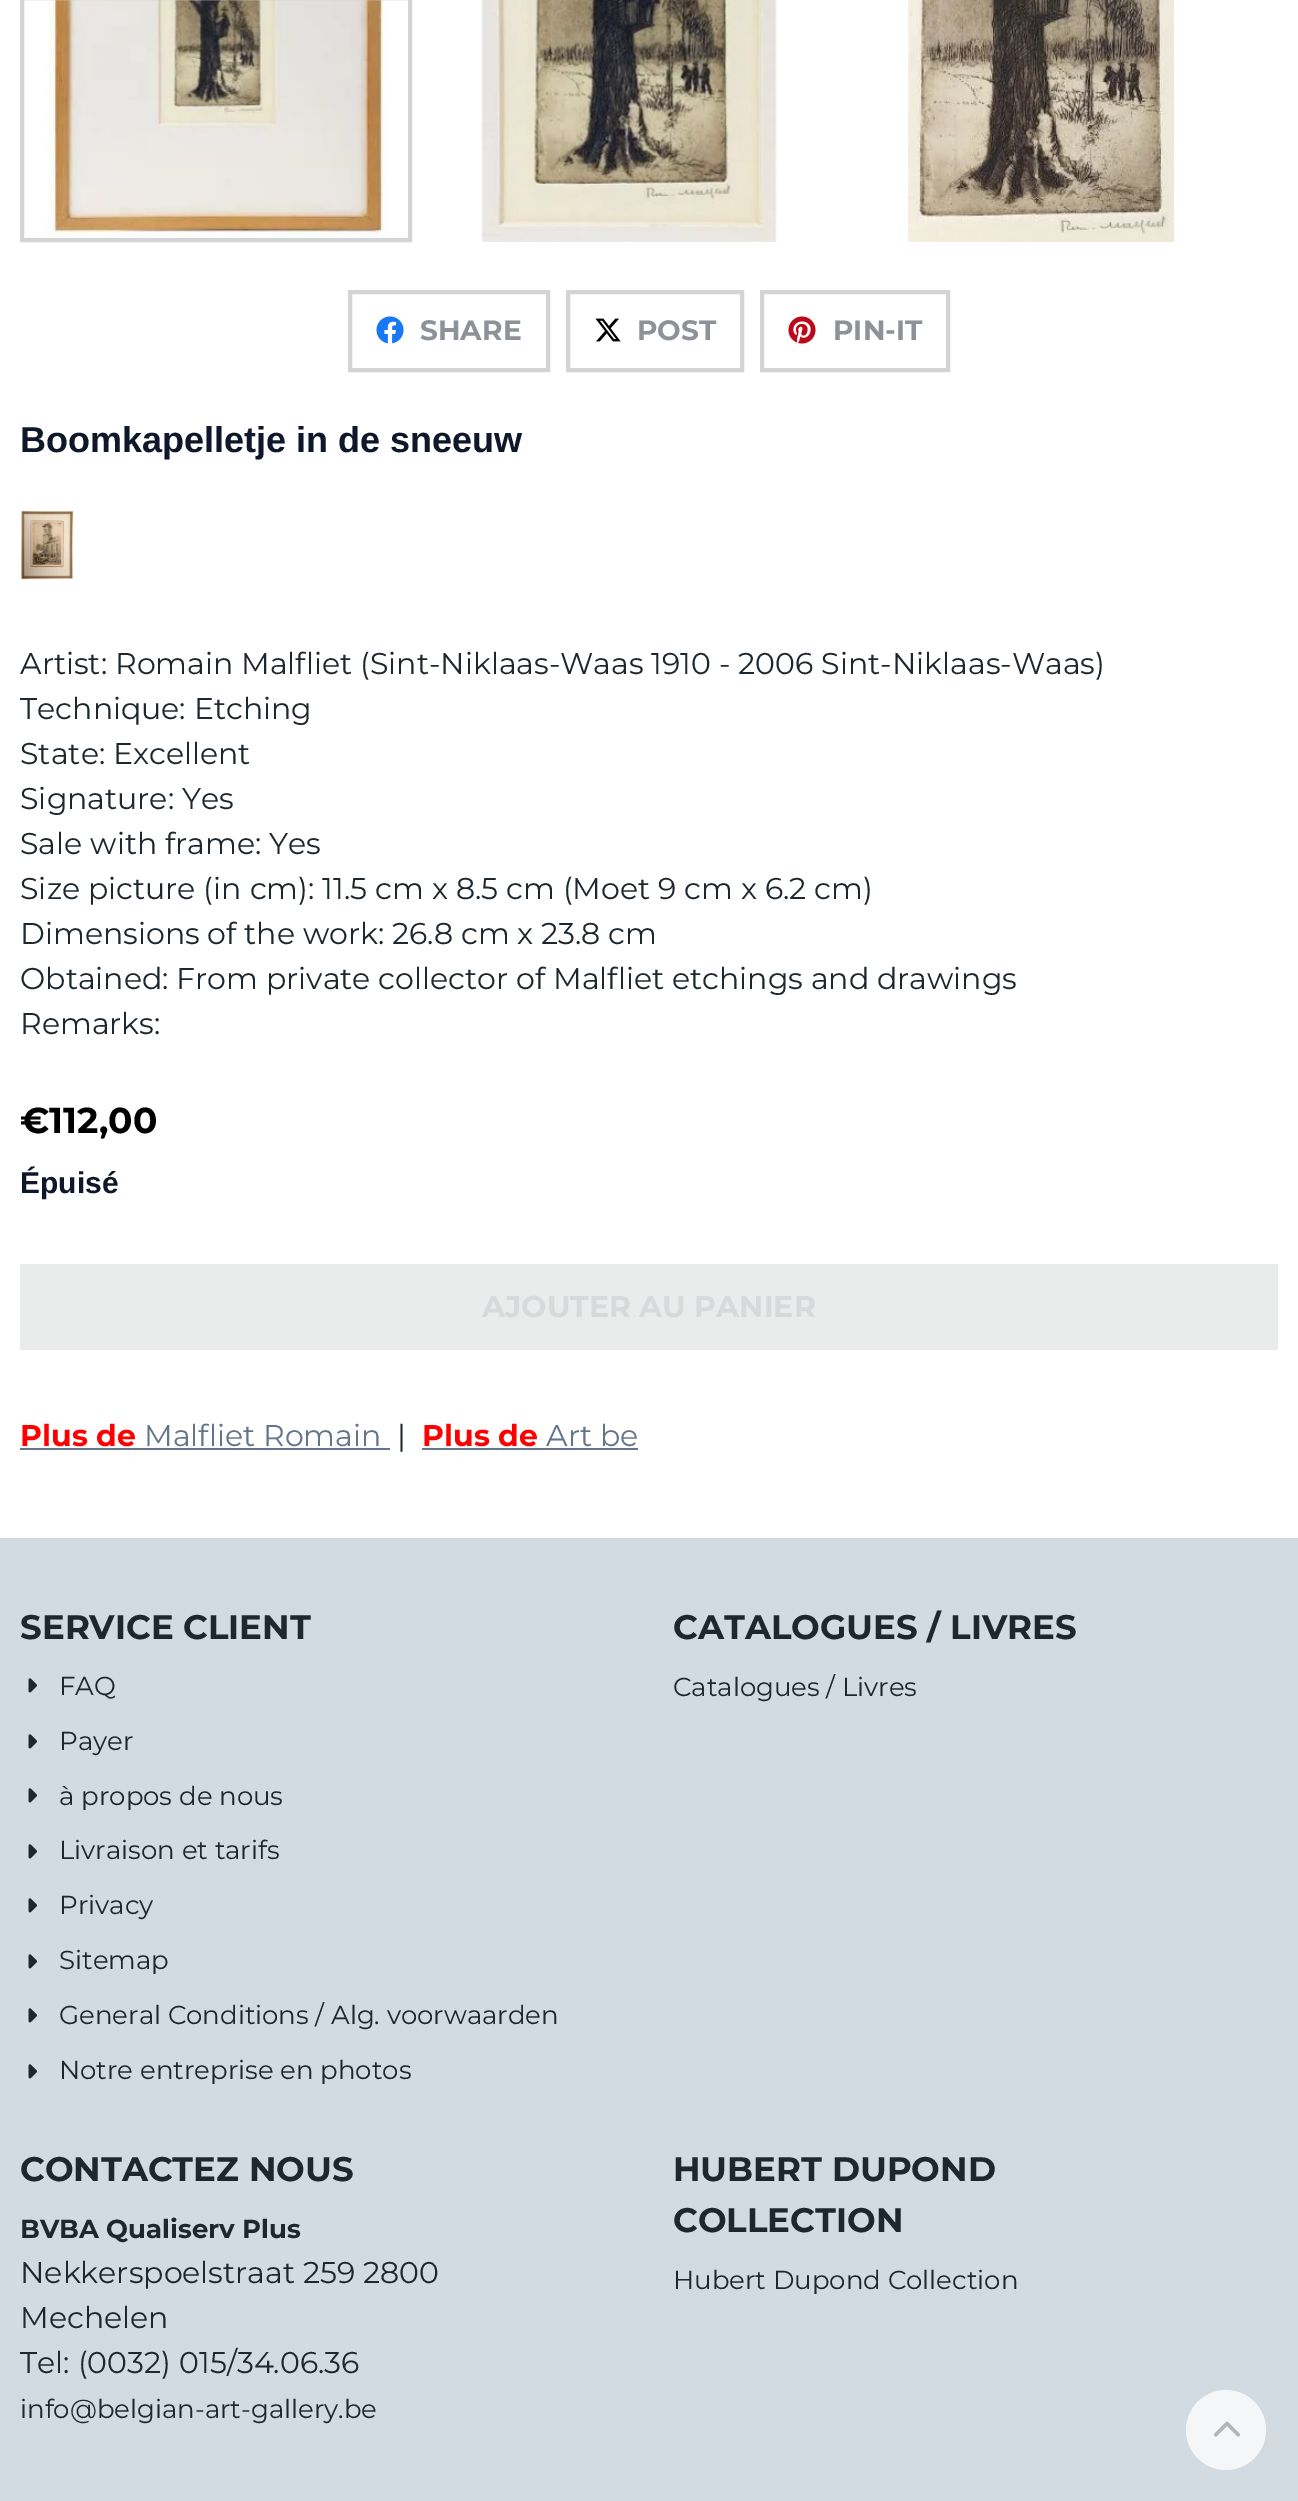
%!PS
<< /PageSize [1298 2501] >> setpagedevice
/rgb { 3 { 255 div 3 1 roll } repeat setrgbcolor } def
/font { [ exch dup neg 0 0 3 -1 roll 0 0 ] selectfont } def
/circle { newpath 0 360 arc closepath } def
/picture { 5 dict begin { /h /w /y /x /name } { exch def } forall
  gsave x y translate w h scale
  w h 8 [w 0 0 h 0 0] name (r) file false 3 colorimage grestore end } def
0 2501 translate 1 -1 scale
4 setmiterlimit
255 255 255 rgb
0 0 1298 2501 rectfill
(img/1.rgb) 47 0 339 238 picture
210 212 214 rgb
4 setlinewidth
22 -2 388 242 rectstroke
(img/2.rgb) 481 0 296 242 picture
(img/3.rgb) 908 0 266 242 picture
350 292 198 78 rectstroke
(img/4.rgb) 376 316 28 28 picture
568 292 174 78 rectstroke
(img/5.rgb) 595 318 26 24 picture
762 292 186 78 rectstroke
(img/6.rgb) 788 316 28 28 picture
(img/7.rgb) 21 510 53 70 picture
[
  [20 1264 1258 86 234 236 236]
  [20 1448 370 2 100 116 139]
  [422 1448 216 2 100 116 139]
  [0 1538 1298 963 210 218 226]
] { aload pop rgb rectfill } forall
(img/8.rgb) 28 1678 9 15 picture
(img/8.rgb) 28 1734 9 15 picture
(img/8.rgb) 28 1788 9 15 picture
(img/8.rgb) 28 1844 9 15 picture
(img/8.rgb) 28 1898 9 15 picture
(img/8.rgb) 28 1954 9 15 picture
(img/8.rgb) 28 2008 9 15 picture
(img/8.rgb) 28 2064 9 15 picture
244 246 248 rgb
1226 2430 40 circle fill
(img/9.rgb) 1213 2421 28 16 picture
/Montserrat-Thin 28 font
140 146 151 rgb
[
  [(SHARE) 420 340]
  [(POST) 637 340]
  [(PIN-IT) 833 340]
] { aload pop moveto show } forall
/Arimo-Bold 36 font
15 23 42 rgb
20 452 moveto (Boomkapelletje in de sneeuw) show
/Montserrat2-Thin 30 font
30 39 46 rgb
[
  [(Artist: Romain Malfliet \(Sint-Niklaas-Waas 1910 - 2006 Sint-Niklaas-Waas\)) 20 674]
  [(Technique: Etching) 20 719]
  [(State: Excellent) 20 764]
  [(Signature: Yes) 20 809]
  [(Sale with frame: Yes) 20 854]
  [(Size picture \(in cm\): 11.5 cm x 8.5 cm \(Moet 9 cm x 6.2 cm\)) 20 899]
  [(Dimensions of the work: 26.8 cm x 23.8 cm) 20 944]
  [(Obtained: From private collector of Malfliet etchings and drawings) 20 989]
  [(Remarks:) 20 1034]
] { aload pop moveto show } forall
/Montserrat-Thin 36 font
0 0 0 rgb
20 1133 moveto (€112,00) show
/Arimo-Bold 30 font
15 23 42 rgb
20 1193 moveto (Épuisé) show
/Montserrat-Thin 30 font
215 217 219 rgb
482 1317 moveto (AJOUTER AU PANIER) show
255 0 0 rgb
20 1446 moveto (Plus de) show
/Montserrat2-Thin 30 font
100 116 139 rgb
144 1446 moveto (Malfliet Romain) show
30 39 46 rgb
397 1446 moveto (|) show
/Montserrat-Thin 30 font
255 0 0 rgb
422 1446 moveto (Plus de) show
/Montserrat2-Thin 30 font
100 116 139 rgb
546 1446 moveto (Art be) show
/Montserrat-Thin 34 font
30 39 46 rgb
20 1639 moveto (SERVICE CLIENT) show
/Montserrat2-Thin 26 font
[
  [(FAQ) 59 1695]
  [(Payer) 59 1750]
  [(à propos de nous) 59 1805]
  [(Livraison et tarifs) 59 1859]
  [(Privacy) 59 1914]
  [(Sitemap) 59 1969]
  [(General Conditions / Alg. voorwaarden) 59 2024]
  [(Notre entreprise en photos) 59 2079]
] { aload pop moveto show } forall
/Montserrat-Thin 34 font
673 1639 moveto (CATALOGUES / LIVRES) show
/Montserrat2-Thin 26 font
673 1696 moveto (Catalogues / Livres) show
/Montserrat-Thin 34 font
20 2181 moveto (CONTACTEZ NOUS) show
/Montserrat-Thin 26 font
20 2238 moveto (BVBA Qualiserv Plus) show
/Montserrat2-Thin 30 font
[
  [(Nekkerspoelstraat 259 2800) 20 2283]
  [(Mechelen) 20 2328]
  [(Tel: \(0032\) 015/34.06.36) 20 2373]
] { aload pop moveto show } forall
/Montserrat2-Thin 26 font
20 2418 moveto (info@belgian-art-gallery.be) show
/Montserrat-Thin 34 font
673 2181 moveto (HUBERT DUPOND) show
673 2232 moveto (COLLECTION) show
/Montserrat2-Thin 26 font
673 2289 moveto (Hubert Dupond Collection) show
showpage
